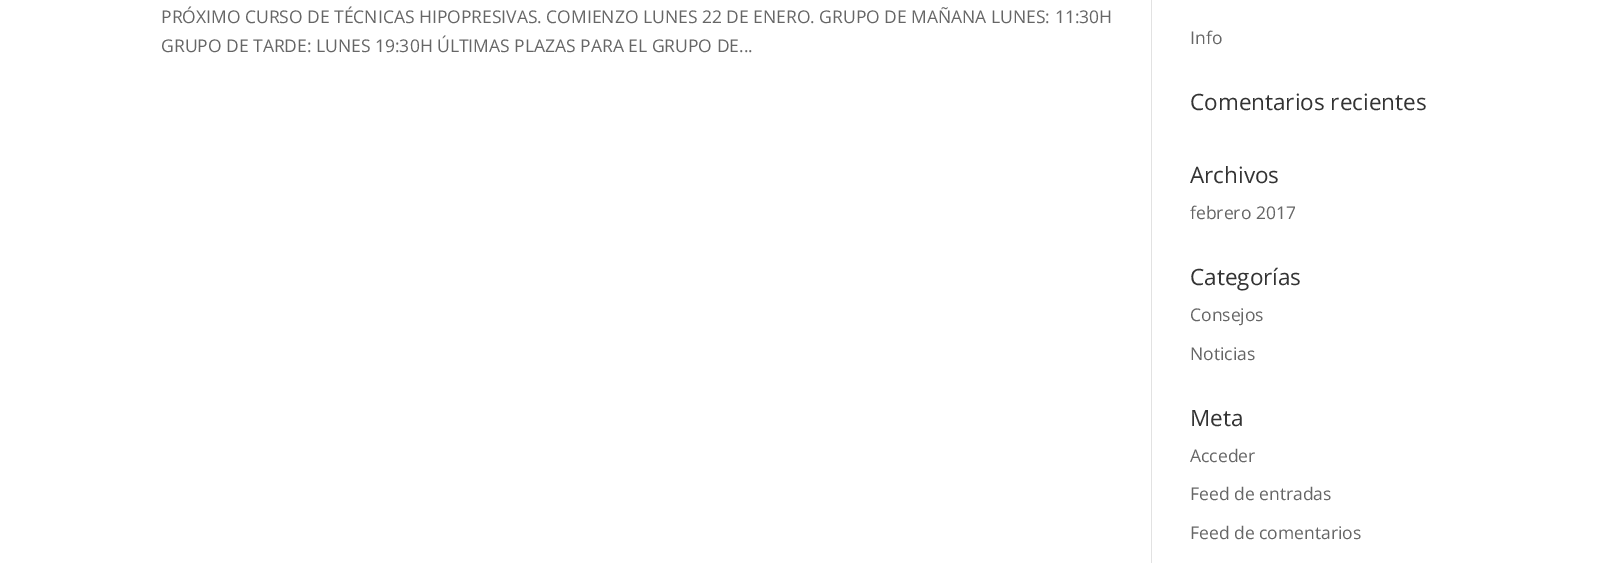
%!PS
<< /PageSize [1605 563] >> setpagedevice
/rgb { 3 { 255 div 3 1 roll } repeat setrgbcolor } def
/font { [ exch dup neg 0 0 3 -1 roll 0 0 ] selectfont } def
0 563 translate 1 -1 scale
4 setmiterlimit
255 255 255 rgb
0 0 1605 563 rectfill
226 226 226 rgb
1151 0 1 563 rectfill
/OpenSans-Regular 17.5 font
102 102 102 rgb
[
  [(PRÓXIMO CURSO DE TÉCNICAS HIPOPRESIVAS. COMIENZO LUNES 22 DE ENERO. GRUPO DE MAÑANA LUNES: 11:30H) 161 23]
  [(GRUPO DE TARDE: LUNES 19:30H ÚLTIMAS PLAZAS PARA EL GRUPO DE...) 161 52]
  [(Info) 1190 44]
] { aload pop moveto show } forall
/OpenSans-Regular 22.5 font
51 51 51 rgb
1190 110 moveto (Comentarios recientes) show
1190 183 moveto (Archivos) show
/OpenSans-Regular 17.5 font
102 102 102 rgb
1190 219 moveto (febrero 2017) show
/OpenSans-Regular 22.5 font
51 51 51 rgb
1190 285 moveto (Categorías) show
/OpenSans-Regular 17.5 font
102 102 102 rgb
1190 321 moveto (Consejos) show
1190 360 moveto (Noticias) show
/OpenSans-Regular 22.5 font
51 51 51 rgb
1190 426 moveto (Meta) show
/OpenSans-Regular 17.5 font
102 102 102 rgb
[
  [(Acceder) 1190 462]
  [(Feed de entradas) 1190 500]
  [(Feed de comentarios) 1190 539]
] { aload pop moveto show } forall
showpage
